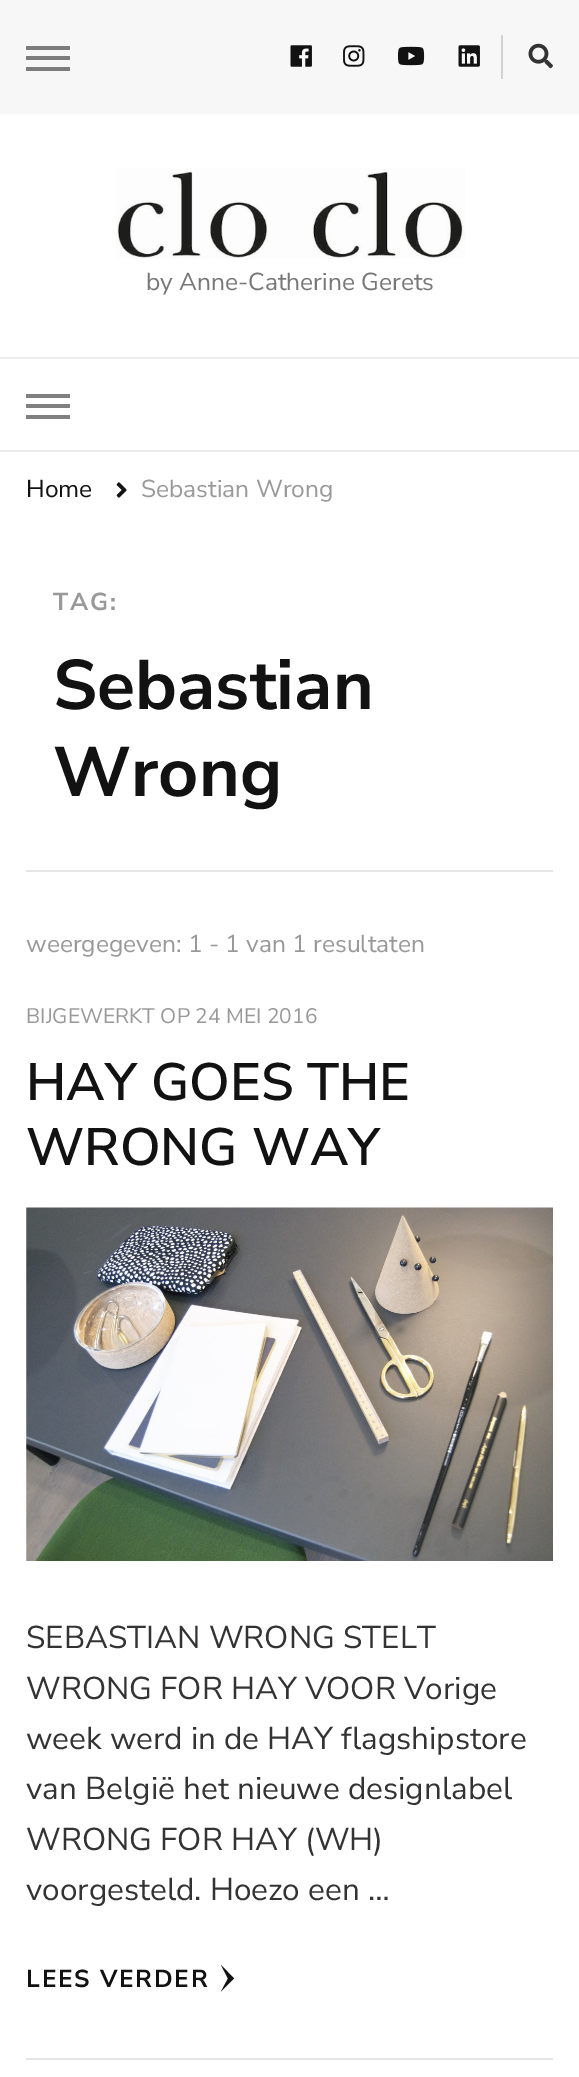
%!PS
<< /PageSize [579 2077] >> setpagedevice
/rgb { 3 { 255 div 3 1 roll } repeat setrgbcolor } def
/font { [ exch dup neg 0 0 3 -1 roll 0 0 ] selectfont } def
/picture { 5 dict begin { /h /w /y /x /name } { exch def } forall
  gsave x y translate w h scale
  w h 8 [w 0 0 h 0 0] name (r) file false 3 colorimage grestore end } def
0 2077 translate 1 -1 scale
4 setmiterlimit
255 255 255 rgb
0 0 579 2077 rectfill
[
  [0 0 579 114 247 247 247]
  [26 46 44 4 124 124 124]
  [26 56 44 4 124 124 124]
  [26 67 44 4 124 124 124]
] { aload pop rgb rectfill } forall
(img/1.rgb) 290 45 22 22 picture
(img/2.rgb) 343 45 22 22 picture
(img/3.rgb) 397 46 28 20 picture
(img/4.rgb) 458 45 22 22 picture
210 210 210 rgb
501 35 2 44 rectfill
(img/5.rgb) 528 43 25 26 picture
(img/6.rgb) 116 168 349 91 picture
[
  [0 357 579 2 237 237 237]
  [0 450 579 2 237 237 237]
  [26 394 44 4 128 128 128]
  [26 404 44 4 128 128 128]
  [26 415 44 4 128 128 128]
] { aload pop rgb rectfill } forall
(img/7.rgb) 116 482 11 16 picture
230 230 230 rgb
26 870 527 2 rectfill
26 2058 527 2 rectfill
(img/8.rgb) 26 1207 527 354 picture
18 18 18 rgb
234 1978.5 moveto 221 1991.5 lineto 228 1978.5 lineto 221 1965 lineto closepath fill
/NunitoSans-Regular 24.5 font
119 119 119 rgb
146 290 moveto (by Anne-Catherine Gerets) show
18 18 18 rgb
26 497 moveto (Home) show
153 153 153 rgb
141 497 moveto (Sebastian Wrong) show
/NunitoSans-Bold 24.5 font
53 610 moveto 1.75 0 (TAG:) ashow
/NunitoSans-Bold 70 font
18 18 18 rgb
53 709 moveto (Sebastian) show
53 796 moveto (Wrong) show
/NunitoSans-Regular 24.5 font
153 153 153 rgb
26 952 moveto (weergegeven: 1 - 1 van 1 resultaten) show
/NunitoSans-Regular 21 font
26 1023 moveto (BIJGEWERKT OP 24 MEI 2016) show
/NunitoSans-SemiBold 52.5 font
18 18 18 rgb
26 1100 moveto (HAY GOES THE) show
26 1165 moveto (WRONG WAY) show
/NunitoSans-Regular 31.5 font
51 51 51 rgb
[
  [(SEBASTIAN WRONG STELT) 26 1648]
  [(WRONG FOR HAY VOOR Vorige) 26 1699]
  [(week werd in de HAY flagshipstore) 26 1749]
  [(van België het nieuwe designlabel) 26 1799]
  [(WRONG FOR HAY \(WH\)) 26 1850]
  [(voorgesteld. Hoezo een …) 26 1900]
] { aload pop moveto show } forall
/NunitoSans-Bold 24.5 font
18 18 18 rgb
26 1987 moveto 1.75 0 (LEES VERDER) ashow
showpage
